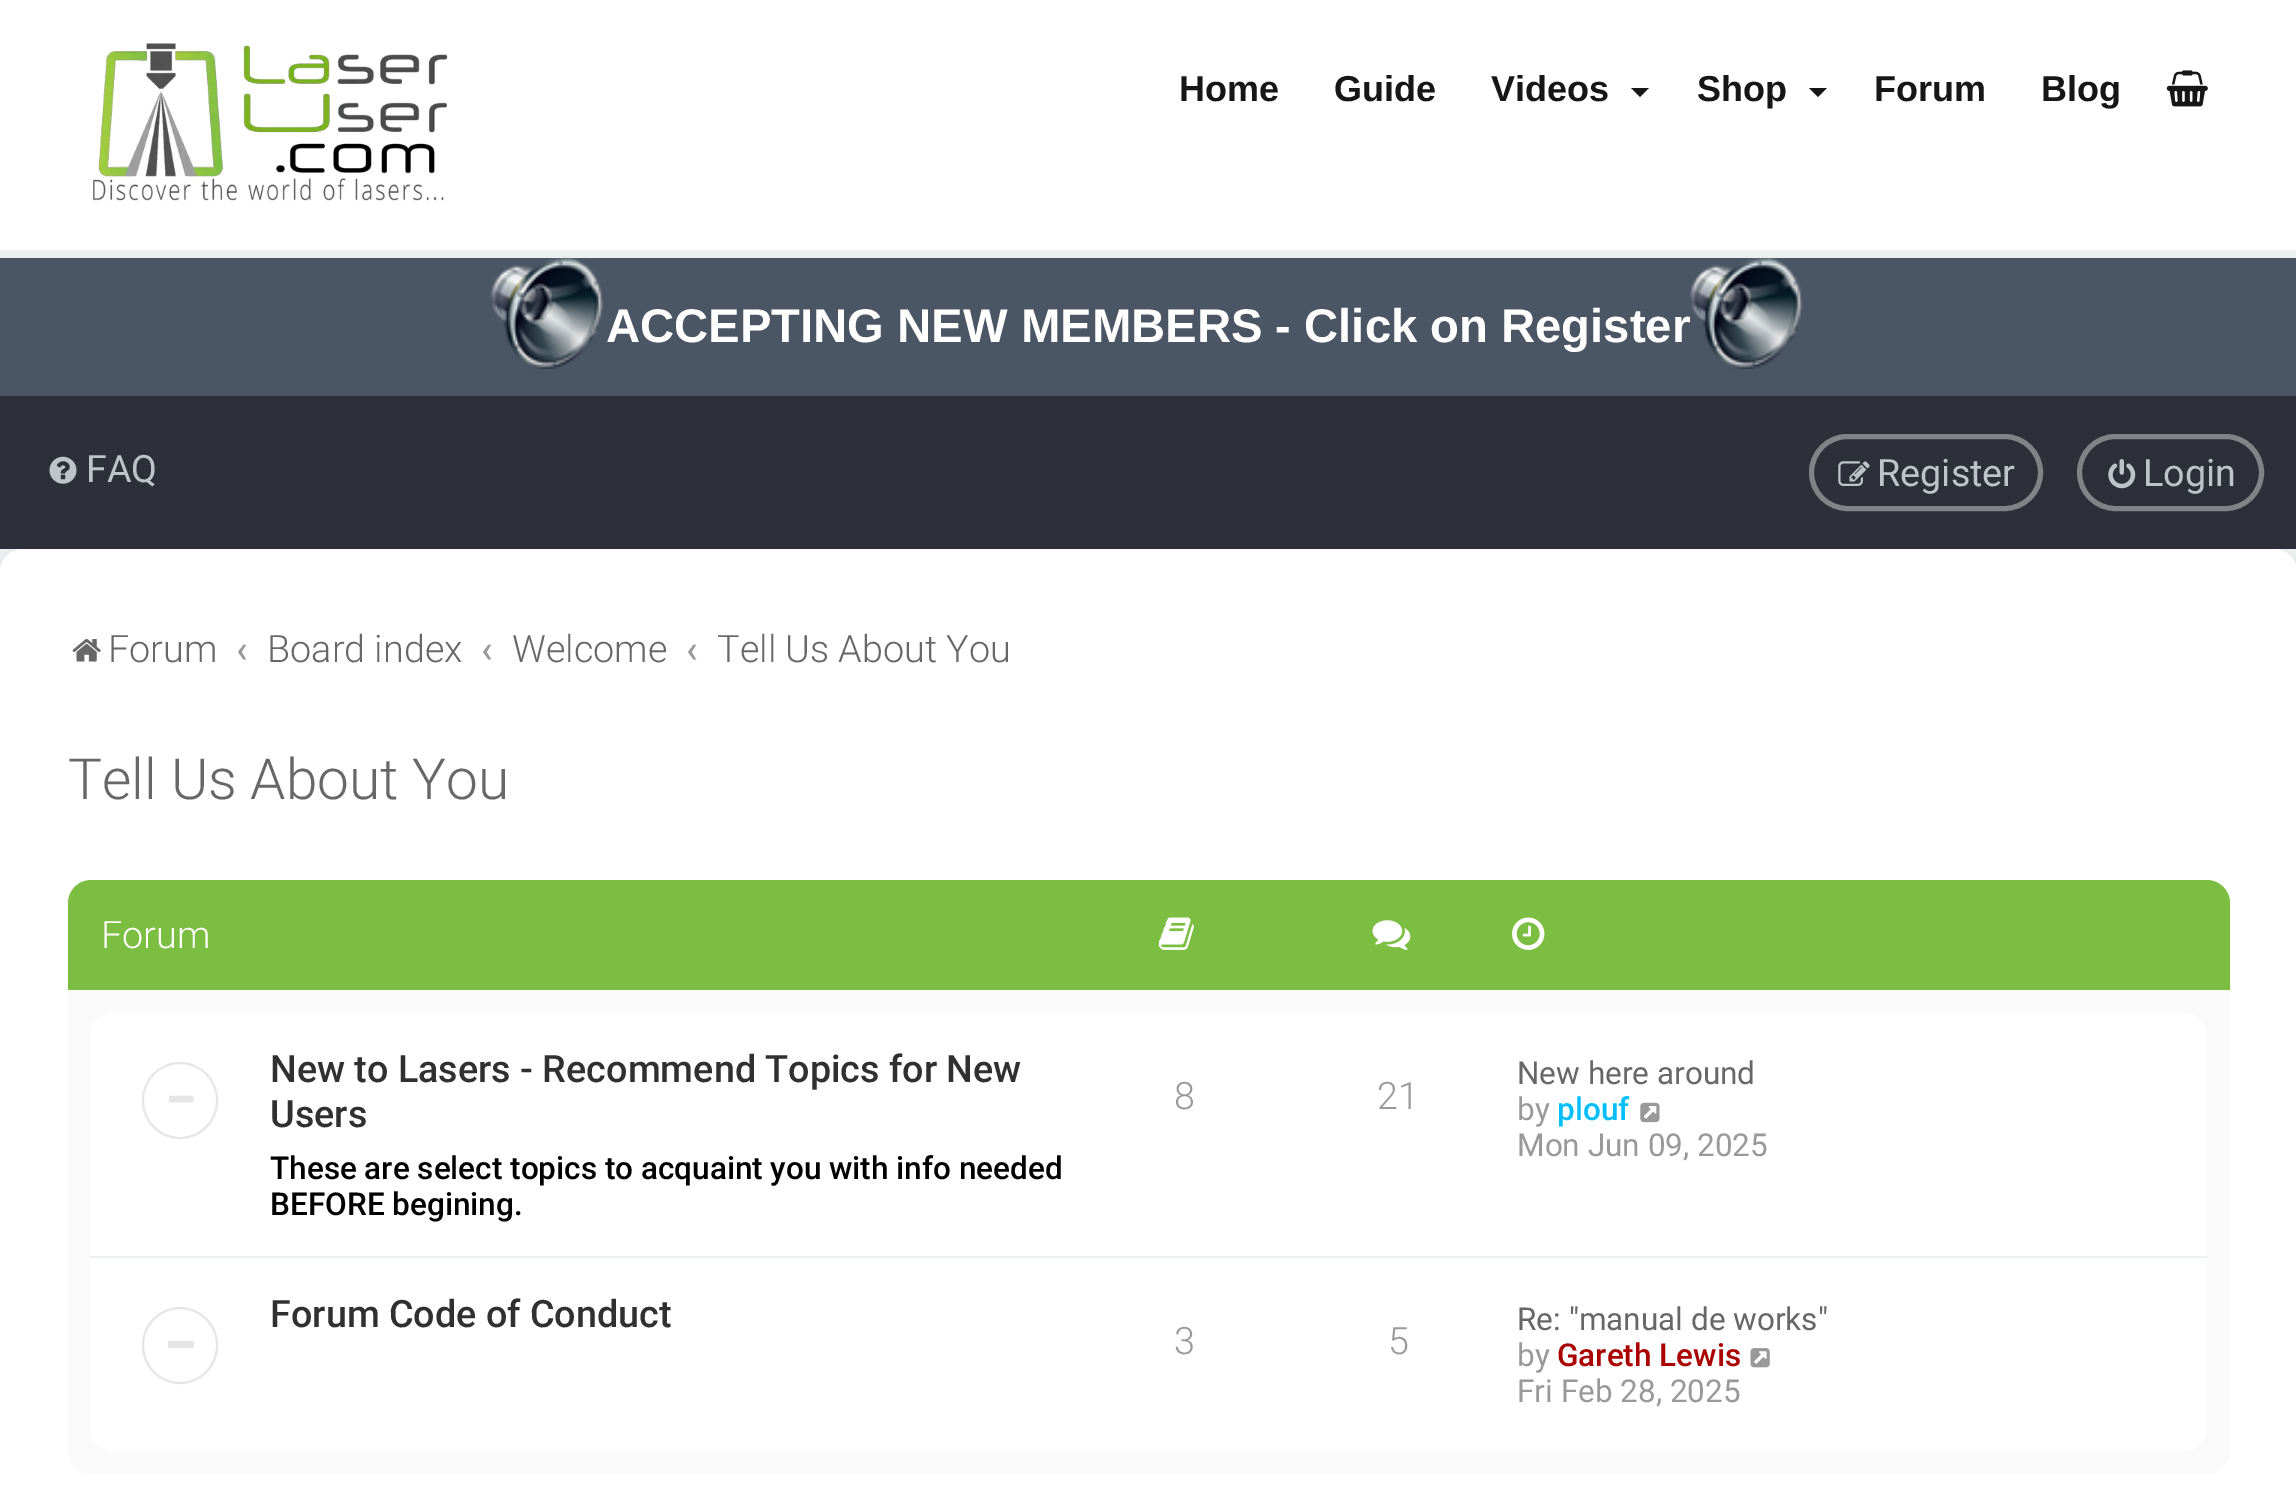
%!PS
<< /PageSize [2296 1490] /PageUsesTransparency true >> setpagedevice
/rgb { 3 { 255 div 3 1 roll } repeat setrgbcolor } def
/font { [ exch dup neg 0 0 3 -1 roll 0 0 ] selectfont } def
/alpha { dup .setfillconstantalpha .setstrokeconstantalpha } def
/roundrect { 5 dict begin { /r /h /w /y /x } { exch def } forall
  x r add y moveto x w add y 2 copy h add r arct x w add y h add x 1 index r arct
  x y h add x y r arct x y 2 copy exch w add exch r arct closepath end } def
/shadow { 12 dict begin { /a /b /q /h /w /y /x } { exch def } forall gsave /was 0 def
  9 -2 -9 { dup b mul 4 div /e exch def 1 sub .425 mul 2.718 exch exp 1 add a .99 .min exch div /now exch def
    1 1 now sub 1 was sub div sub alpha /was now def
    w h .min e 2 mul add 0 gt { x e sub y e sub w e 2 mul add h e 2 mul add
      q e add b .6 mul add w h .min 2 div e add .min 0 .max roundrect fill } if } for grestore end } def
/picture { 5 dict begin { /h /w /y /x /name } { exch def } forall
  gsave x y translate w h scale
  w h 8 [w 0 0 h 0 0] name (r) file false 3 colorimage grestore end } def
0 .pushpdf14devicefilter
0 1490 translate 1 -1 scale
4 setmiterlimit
236 240 241 rgb
0 0 2296 1490 rectfill
255 255 255 rgb
0 0 2296 250 rectfill
(img/1.rgb) 93 43 355 158 picture
22 22 22 rgb
1631 88 moveto 1649 88 lineto 1640 97 lineto closepath fill
1809 88 moveto 1827 88 lineto 1818 97 lineto closepath fill
(img/2.rgb) 2166 70 42 37 picture
75 86 101 rgb
0 258 2296 138 rectfill
(img/3.rgb) 490 256 113 113 picture
0 0 0 rgb
0 549 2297 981 23 5.5 0.05 shadow
45 48 57 rgb
0 396 2296 153 rectfill
(img/5.rgb) 49 456 28 28 picture
129 131 136 rgb
5 setlinewidth
1811.5 436.5 229 72 36 roundrect stroke
(img/6.rgb) 1838 461 32 25 picture
2079.5 436.5 182 72 36 roundrect stroke
(img/7.rgb) 2108 459 28 30 picture
255 255 255 rgb
0 549 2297 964 23 roundrect fill
(img/8.rgb) 72 639 29 23 picture
250 250 250 rgb
68 880 2162 594 23 roundrect fill
124 190 66 rgb
91 880 moveto 2207 880 lineto 2219.5 880 2230 890.5 2230 903 curveto 2230 990 lineto 68 990 lineto 68 903 lineto 68 890.5 78.5 880 91 880 curveto closepath fill
(img/9.rgb) 1158 917 36 33 picture
(img/10.rgb) 1372 920 39 30 picture
(img/11.rgb) 1512 917 33 33 picture
255 255 255 rgb
113 1013 moveto 2184 1013 lineto 2196.5 1013 2207 1023.5 2207 1036 curveto 2207 1258 lineto 90 1258 lineto 90 1036 lineto 90 1023.5 100.5 1013 113 1013 curveto closepath fill
236 240 241 rgb
90 1256 2117 2 rectfill
230 230 230 rgb
2 setlinewidth
143 1063 74 75 37 roundrect stroke
(img/12.rgb) 168 1095 26 8 picture
(img/13.rgb) 1640 1102 20 21 picture
255 255 255 rgb
90 1258 moveto 2207 1258 lineto 2207 1428 lineto 2207 1440.5 2196.5 1451 2184 1451 curveto 113 1451 lineto 100.5 1451 90 1440.5 90 1428 curveto closepath fill
230 230 230 rgb
143 1308 74 75 37 roundrect stroke
168 1341 26 7 rectfill
(img/14.rgb) 1750 1348 20 20 picture
/LiberationSans-Bold 36 font
22 22 22 rgb
[
  [(Home) 1179 101]
  [(Guide) 1334 101]
  [(Videos) 1491 101]
  [(Shop) 1697 101]
  [(Forum) 1874 101]
  [(Blog) 2041 101]
] { aload pop moveto show } forall
/LiberationSans-Bold 47.25 font
255 255 255 rgb
606 342 moveto (ACCEPTING NEW MEMBERS - Click on Register) show
(img/4.rgb) 1689 256 114 113 picture
/Roboto-Regular 37.75 font
190 196 201 rgb
[
  [(FAQ) 86 482]
  [(Register) 1877 486]
  [(Login) 2143 486]
] { aload pop moveto show } forall
/Roboto-Light 37.75 font
103 103 103 rgb
108 662 moveto (Forum) show
/Roboto-Medium 37.75 font
153 153 153 rgb
236 662 moveto (‹) show
/Roboto-Light 37.75 font
103 103 103 rgb
267 662 moveto (Board index) show
/Roboto-Medium 37.75 font
153 153 153 rgb
481 662 moveto (‹) show
/Roboto-Light 37.75 font
103 103 103 rgb
512 662 moveto (Welcome) show
/Roboto-Medium 37.75 font
153 153 153 rgb
686 662 moveto (‹) show
/Roboto-Light 37.75 font
103 103 103 rgb
717 662 moveto (Tell Us About You) show
/Roboto-Light 56.75 font
68 799 moveto (Tell Us About You) show
/Roboto-Light 37.75 font
255 255 255 rgb
101 948 moveto (Forum) show
/Roboto-Medium 37.75 font
48 48 48 rgb
270 1082 moveto (New to Lasers - Recommend Topics for New) show
270 1127 moveto (Users) show
/Roboto-Medium 31.5 font
0 0 0 rgb
270 1179 moveto (These are select topics to acquaint you with info needed) show
270 1215 moveto (BEFORE begining.) show
/Roboto-Light 37.75 font
153 153 153 rgb
1174 1109 moveto (8) show
1377 1109 moveto (21) show
/Roboto-Regular 31.5 font
103 103 103 rgb
1517 1084 moveto (New here around) show
153 153 153 rgb
1517 1120 moveto (by) show
/Roboto-Medium 31.5 font
0 191 255 rgb
1557 1120 moveto (plouf) show
/Roboto-Regular 31.5 font
153 153 153 rgb
1517 1156 moveto (Mon Jun 09, 2025) show
/Roboto-Medium 37.75 font
48 48 48 rgb
270 1327 moveto (Forum Code of Conduct) show
/Roboto-Light 37.75 font
153 153 153 rgb
1174 1354 moveto (3) show
1388 1354 moveto (5) show
/Roboto-Regular 31.5 font
103 103 103 rgb
1517 1330 moveto (Re: "manual de works") show
153 153 153 rgb
1517 1366 moveto (by) show
/Roboto-Medium 31.5 font
170 0 0 rgb
1557 1366 moveto (Gareth Lewis) show
/Roboto-Regular 31.5 font
153 153 153 rgb
1517 1402 moveto (Fri Feb 28, 2025) show
.poppdf14devicefilter showpage
